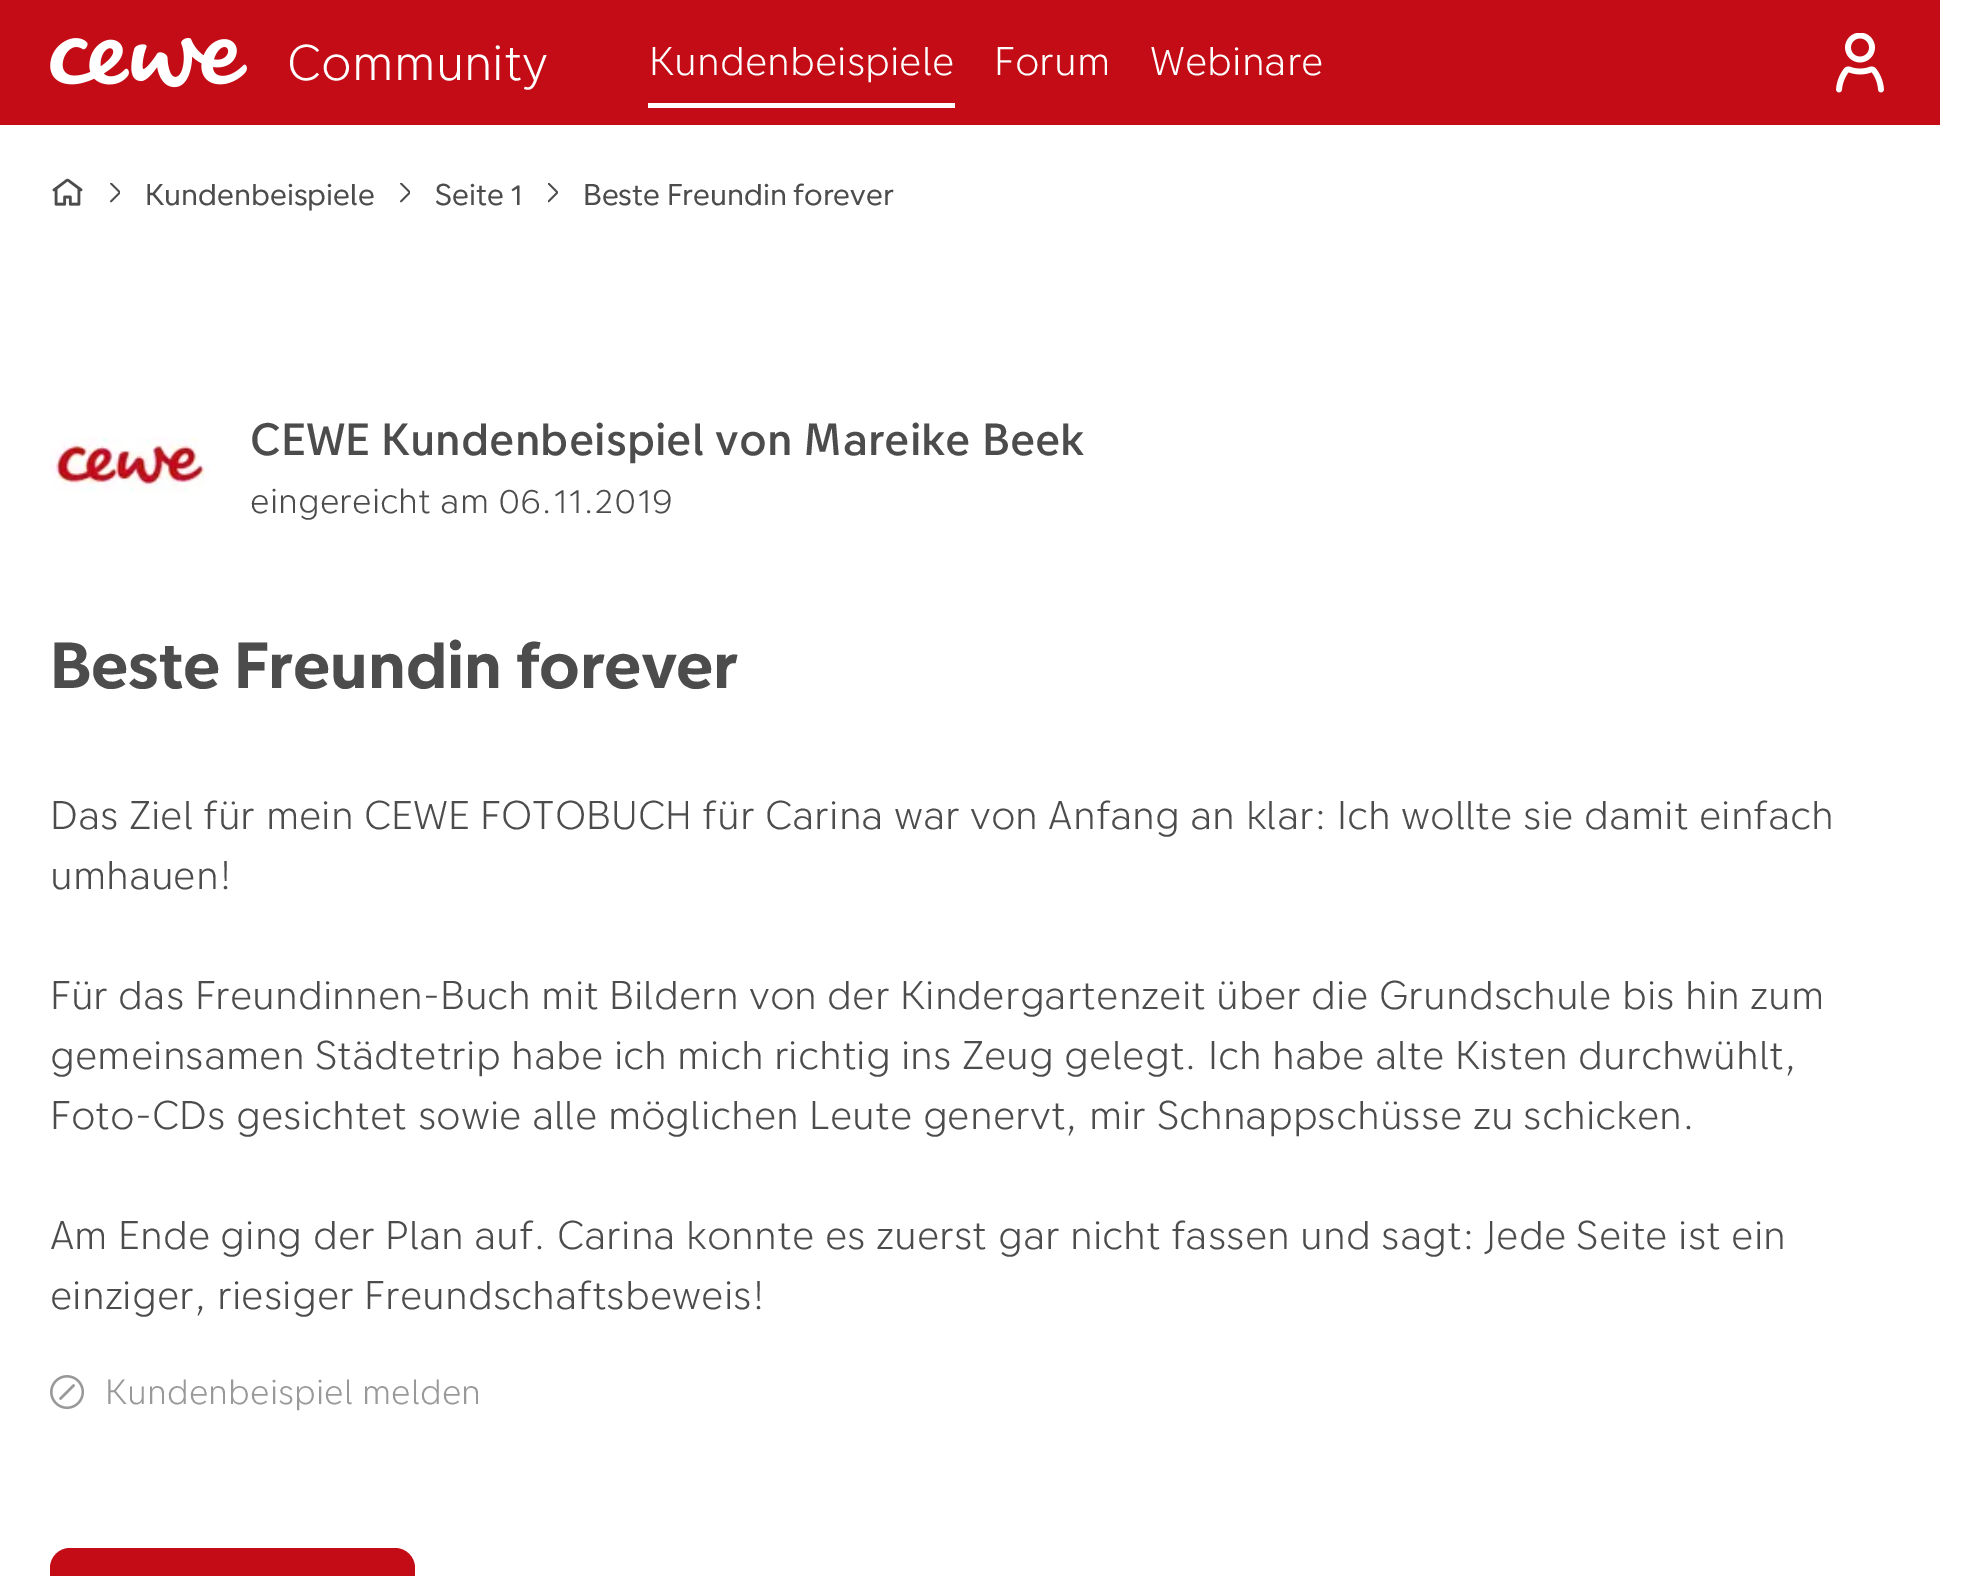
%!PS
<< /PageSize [1976 1576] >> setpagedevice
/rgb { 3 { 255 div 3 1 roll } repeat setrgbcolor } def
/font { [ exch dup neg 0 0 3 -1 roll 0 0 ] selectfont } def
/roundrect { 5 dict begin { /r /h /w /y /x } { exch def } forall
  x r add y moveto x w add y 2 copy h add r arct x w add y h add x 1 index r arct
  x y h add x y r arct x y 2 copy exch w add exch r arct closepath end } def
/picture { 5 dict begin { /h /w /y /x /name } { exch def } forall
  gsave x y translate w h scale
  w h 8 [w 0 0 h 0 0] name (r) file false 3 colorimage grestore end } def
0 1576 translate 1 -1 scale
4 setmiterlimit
255 255 255 rgb
0 0 1976 1576 rectfill
195 12 21 rgb
0 0 1940 125 rectfill
(img/1.rgb) 50 38 197 50 picture
255 255 255 rgb
648 103 307 5 rectfill
(img/2.rgb) 1836 33 48 60 picture
(img/3.rgb) 52 178 31 28 picture
(img/4.rgb) 110 183 10 20 picture
(img/4.rgb) 400 183 10 20 picture
(img/5.rgb) 548 183 10 20 picture
(img/6.rgb) 50 437 160 56 picture
(img/7.rgb) 50 1375 34 35 picture
195 12 21 rgb
50 1548 365 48 20 roundrect fill
/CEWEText-Light 50 font
255 255 255 rgb
287 80 moveto (Community) show
/CEWEText-Light 40 font
[
  [(Kundenbeispiele) 649 75]
  [(Forum) 994 75]
  [(Webinare) 1150 75]
] { aload pop moveto show } forall
/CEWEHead-Regular 30 font
76 76 76 rgb
[
  [(Kundenbeispiele) 145 205]
  [(Seite 1) 435 205]
  [(Beste Freundin forever) 583 205]
] { aload pop moveto show } forall
/CEWEText-Medium 45 font
250 455 moveto (CEWE Kundenbeispiel von Mareike Beek) show
/CEWEText-Light 35 font
250 513 moveto (eingereicht am 06.11.2019) show
/CEWEHead-Bold 65 font
50 688 moveto (Beste Freundin forever) show
/CEWEText-Light 40 font
[
  [(Das Ziel für mein CEWE FOTOBUCH für Carina war von Anfang an klar: Ich wollte sie damit einfach) 50 829]
  [(umhauen!) 50 889]
  [(Für das Freundinnen-Buch mit Bildern von der Kindergartenzeit über die Grundschule bis hin zum) 50 1009]
  [(gemeinsamen Städtetrip habe ich mich richtig ins Zeug gelegt. Ich habe alte Kisten durchwühlt,) 50 1069]
  [(Foto-CDs gesichtet sowie alle möglichen Leute genervt, mir Schnappschüsse zu schicken.) 50 1129]
  [(Am Ende ging der Plan auf. Carina konnte es zuerst gar nicht fassen und sagt: Jede Seite ist ein) 50 1249]
  [(einziger, riesiger Freundschaftsbeweis!) 50 1309]
] { aload pop moveto show } forall
/CEWEText-Light 35 font
153 153 153 rgb
105 1404 moveto (Kundenbeispiel melden) show
showpage
